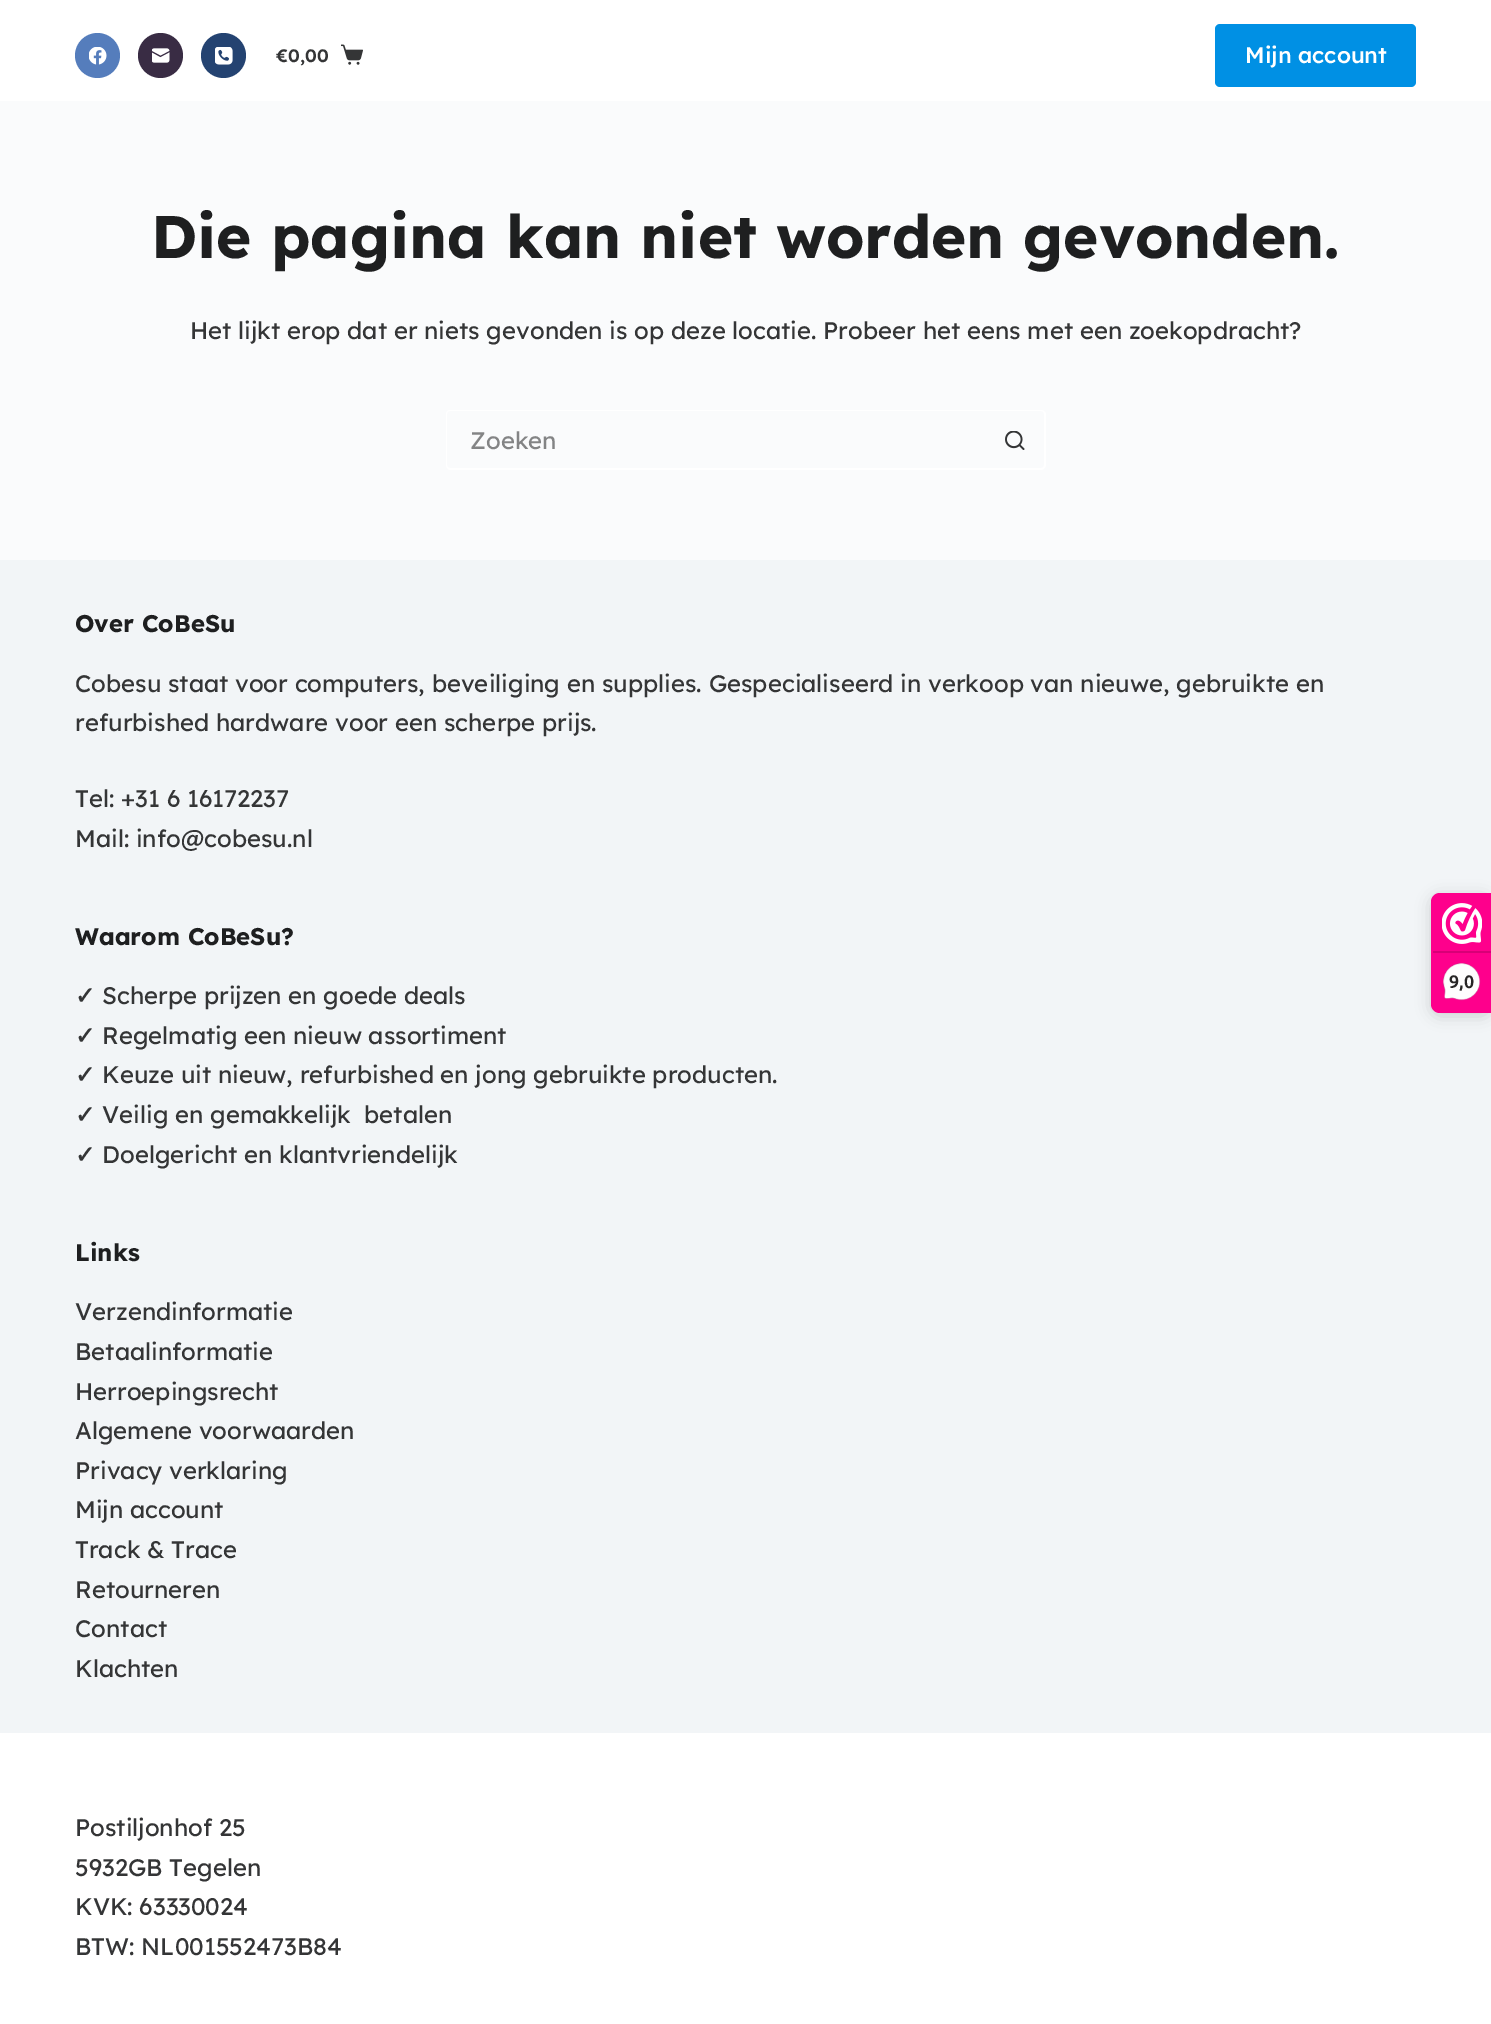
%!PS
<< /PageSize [1491 2024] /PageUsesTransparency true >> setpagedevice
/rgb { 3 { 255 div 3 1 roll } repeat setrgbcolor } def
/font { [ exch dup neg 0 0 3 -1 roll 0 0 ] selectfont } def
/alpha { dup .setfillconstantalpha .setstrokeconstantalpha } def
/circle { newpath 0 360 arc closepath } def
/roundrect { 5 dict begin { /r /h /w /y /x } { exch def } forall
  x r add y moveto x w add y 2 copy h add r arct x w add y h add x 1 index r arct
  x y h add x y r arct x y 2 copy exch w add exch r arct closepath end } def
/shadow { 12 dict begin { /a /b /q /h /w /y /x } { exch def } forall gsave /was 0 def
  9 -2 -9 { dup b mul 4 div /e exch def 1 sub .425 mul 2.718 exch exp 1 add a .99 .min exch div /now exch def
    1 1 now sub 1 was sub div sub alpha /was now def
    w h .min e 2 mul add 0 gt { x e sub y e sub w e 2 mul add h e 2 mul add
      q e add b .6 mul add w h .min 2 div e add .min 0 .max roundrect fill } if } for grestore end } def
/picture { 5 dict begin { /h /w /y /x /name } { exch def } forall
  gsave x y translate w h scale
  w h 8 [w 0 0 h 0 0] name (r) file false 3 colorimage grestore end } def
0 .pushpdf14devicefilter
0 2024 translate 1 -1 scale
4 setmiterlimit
250 251 252 rgb
0 0 1491 2024 rectfill
255 255 255 rgb
0 0 1491 101 rectfill
85 125 188 rgb
97.5 55.5 22.5 circle fill
(img/1.rgb) 89 47 18 18 picture
57 44 68 rgb
160.5 55.5 22.5 circle fill
(img/2.rgb) 152 48 18 15 picture
36 67 113 rgb
223.5 55.5 22.5 circle fill
(img/3.rgb) 215 47 18 18 picture
(img/4.rgb) 341 44 22 21 picture
0 144 228 rgb
1215 24 201 63 5 roundrect fill
255 255 255 rgb
450 410 moveto 986 410 lineto 986 470 lineto 450 470 lineto 448 470 446 467 446 465 curveto 446 414 lineto 446 412 448 410 450 410 curveto closepath 450 411 moveto 986 411 lineto 986 468 lineto 450 468 lineto 448 468 447 467 447 465 curveto 447 414 lineto 447 412 448 411 450 411 curveto closepath eofill
986 410 moveto 1041 410 lineto 1043 410 1046 412 1046 414 curveto 1046 465 lineto 1046 467 1043 470 1041 470 curveto 986 470 lineto closepath 986 411 moveto 1041 411 lineto 1043 411 1044 412 1044 414 curveto 1044 465 lineto 1044 467 1043 468 1041 468 curveto 986 468 lineto closepath eofill
(img/5.rgb) 1005 431 20 19 picture
242 245 247 rgb
0 560 1491 1173 rectfill
255 255 255 rgb
0 1733 1491 291 rectfill
0 0 0 rgb
1431 896 60 120 9 7.5 0.15 shadow
254 0 140 rgb
1440 893 moveto 1491 893 lineto 1491 1013 lineto 1440 1013 lineto 1435 1013 1431 1009 1431 1004 curveto 1431 902 lineto 1431 897 1435 893 1440 893 curveto closepath fill
(img/6.rgb) 1442 903 40 41 picture
216 0 119 rgb
1433 951 58 2 rectfill
(img/7.rgb) 1443 963 38 38 picture
/Lexend-SemiBold 18 font
52 53 54 rgb
276 62 moveto (€0,00) show
/Lexend-Medium 22.5 font
255 255 255 rgb
1245 63 moveto (Mijn account) show
/Lexend-Bold 60 font
30 31 32 rgb
151 258 moveto (Die pagina kan niet worden gevonden.) show
/Lexend-Regular 24 font
52 53 54 rgb
190 339 moveto (Het lijkt erop dat er niets gevonden is op deze locatie. Probeer het eens met een zoekopdracht?) show
131 132 133 rgb
470 449 moveto (Zoeken) show
/Lexend-Bold 24 font
30 31 32 rgb
75 632 moveto (Over CoBeSu) show
/Lexend-Regular 24 font
52 53 54 rgb
[
  [(Cobesu staat voor computers, beveiliging en supplies. Gespecialiseerd in verkoop van nieuwe, gebruikte en) 75 692]
  [(refurbished hardware voor een scherpe prijs.) 75 731]
  [(Tel: +31 6 16172237) 75 807]
  [(Mail: info@cobesu.nl) 75 847]
] { aload pop moveto show } forall
/Lexend-Bold 24 font
30 31 32 rgb
75 945 moveto (Waarom CoBeSu?) show
/DejaVuSans-Bold 24 font
52 53 54 rgb
75 1004 moveto (✓) show
/Lexend-Regular 24 font
102 1004 moveto (Scherpe prijzen en goede deals) show
/DejaVuSans-Bold 24 font
75 1044 moveto (✓) show
/Lexend-Regular 24 font
102 1044 moveto (Regelmatig een nieuw assortiment) show
/DejaVuSans-Bold 24 font
75 1083 moveto (✓) show
/Lexend-Regular 24 font
102 1083 moveto (Keuze uit nieuw, refurbished en jong gebruikte producten.) show
/DejaVuSans-Bold 24 font
75 1123 moveto (✓) show
/Lexend-Regular 24 font
102 1123 moveto (Veilig en gemakkelijk  betalen) show
/DejaVuSans-Bold 24 font
75 1163 moveto (✓) show
/Lexend-Regular 24 font
102 1163 moveto (Doelgericht en klantvriendelijk) show
/Lexend-Bold 24 font
30 31 32 rgb
75 1261 moveto (Links) show
/Lexend-Regular 24 font
52 53 54 rgb
[
  [(Verzendinformatie) 75 1320]
  [(Betaalinformatie) 75 1360]
  [(Herroepingsrecht) 75 1400]
  [(Algemene voorwaarden) 75 1439]
  [(Privacy verklaring) 75 1479]
  [(Mijn account) 75 1518]
  [(Track & Trace) 75 1558]
  [(Retourneren) 75 1598]
  [(Contact) 75 1637]
  [(Klachten) 75 1677]
  [(Postiljonhof 25) 75 1836]
  [(5932GB Tegelen) 75 1876]
  [(KVK: 63330024) 75 1915]
  [(BTW: NL001552473B84) 75 1955]
] { aload pop moveto show } forall
/Ubuntu-Bold 18 font
39 38 38 rgb
1449 988 moveto (9,0) show
.poppdf14devicefilter showpage
